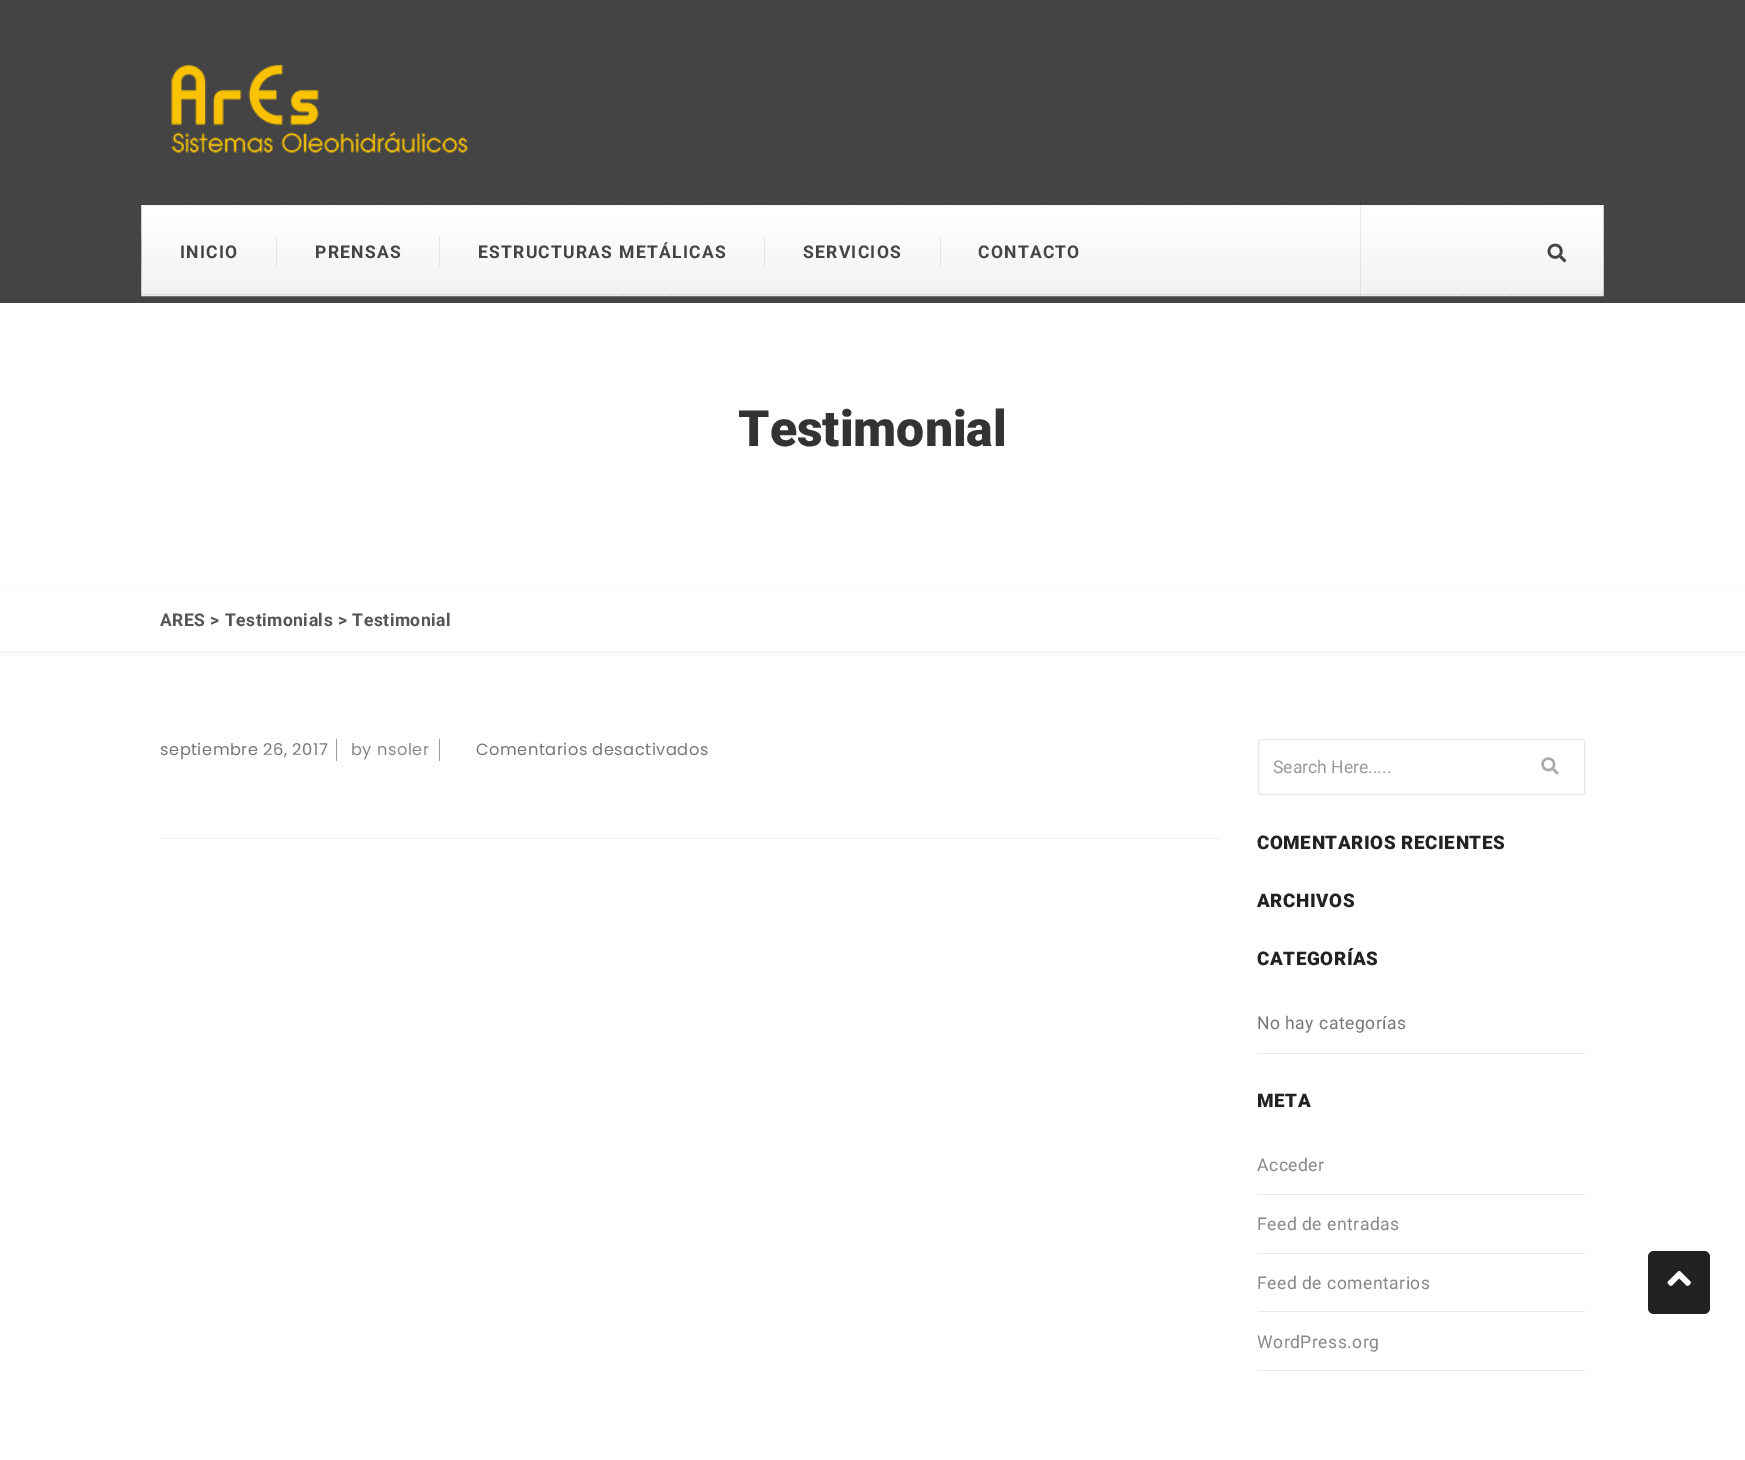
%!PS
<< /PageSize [1745 1460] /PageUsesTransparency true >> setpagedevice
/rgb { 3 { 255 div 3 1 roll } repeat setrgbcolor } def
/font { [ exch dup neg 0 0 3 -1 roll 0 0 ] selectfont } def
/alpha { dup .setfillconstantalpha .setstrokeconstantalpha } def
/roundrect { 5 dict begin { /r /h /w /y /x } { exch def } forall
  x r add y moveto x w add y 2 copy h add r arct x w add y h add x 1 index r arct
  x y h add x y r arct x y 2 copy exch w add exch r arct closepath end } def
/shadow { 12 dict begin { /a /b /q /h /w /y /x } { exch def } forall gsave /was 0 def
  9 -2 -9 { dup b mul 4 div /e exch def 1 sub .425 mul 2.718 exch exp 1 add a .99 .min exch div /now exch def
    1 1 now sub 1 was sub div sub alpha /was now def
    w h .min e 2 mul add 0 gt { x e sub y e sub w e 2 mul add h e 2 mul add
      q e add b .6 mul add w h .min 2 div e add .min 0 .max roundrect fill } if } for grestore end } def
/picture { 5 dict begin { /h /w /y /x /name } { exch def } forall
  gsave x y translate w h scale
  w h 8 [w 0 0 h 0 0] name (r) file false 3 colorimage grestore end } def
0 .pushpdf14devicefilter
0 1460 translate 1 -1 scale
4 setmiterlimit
255 255 255 rgb
0 0 1745 1460 rectfill
68 68 68 rgb
0 0 1745 303 rectfill
(img/1.rgb) 171 64 297 89 picture
(img/2.rgb) 141 205 1219 92 picture
0.08 alpha
[
  [141 236 1 30 0 0 0]
  [276 236 1 30 0 0 0]
  [439 236 1 30 0 0 0]
  [764 236 1 30 0 0 0]
  [940 236 1 30 0 0 0]
] { aload pop rgb rectfill } forall
1 alpha
(img/3.rgb) 1360 205 244 92 picture
0.08 alpha
1360 205 1 91 rectfill
1 alpha
(img/4.rgb) 1547 243 20 20 picture
gsave
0 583 moveto 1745 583 lineto 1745 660 lineto 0 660 lineto closepath 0 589 moveto 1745 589 lineto 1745 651 lineto 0 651 lineto closepath eoclip newpath
238 238 238 rgb
1 590 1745 63 0 2 1 shadow
grestore
[
  [160 838 1060 1 238 238 238]
  [336 739 1 22 158 158 158]
  [439 739 1 22 158 158 158]
] { aload pop rgb rectfill } forall
232 232 232 rgb
1258.5 739.5 326 55 2 roundrect stroke
(img/5.rgb) 1541 757 18 18 picture
[
  [1258 1053 327 1 232 232 232]
  [1258 1194 327 1 232 232 232]
  [1258 1253 327 1 232 232 232]
  [1258 1311 327 1 232 232 232]
  [1258 1370 327 1 232 232 232]
] { aload pop rgb rectfill } forall
34 34 34 rgb
1648 1251 62 63 6 roundrect fill
(img/6.rgb) 1667 1270 24 16 picture
/Roboto-Bold 17.5 font
68 68 68 rgb
180 258 moveto 1.25 0 (INICIO) ashow
315 258 moveto 1.25 0 (PRENSAS) ashow
478 258 moveto 1.25 0 (ESTRUCTURAS METÁLICAS) ashow
803 258 moveto 1.25 0 (SERVICIOS) ashow
978 258 moveto 1.25 0 (CONTACTO) ashow
/Roboto-Black 50 font
51 51 51 rgb
738 446 moveto (Testimonial) show
/Roboto-Bold 17.5 font
85 85 85 rgb
160 626 moveto 0.5 0 (ARES > Testimonials > Testimonial) ashow
/Poppins-Regular 16.25 font
119 119 119 rgb
160 755 moveto 0.5 0 (septiembre 26, 2017) ashow
136 136 136 rgb
351 755 moveto 0.5 0 (by nsoler) ashow
119 119 119 rgb
476 755 moveto 0.5 0 (Comentarios desactivados) ashow
/Roboto-Regular 17.5 font
153 153 153 rgb
1273 773 moveto (Search Here.....) show
/Roboto-Black 18.75 font
34 34 34 rgb
1257 849 moveto 0.6 0 (COMENTARIOS RECIENTES) ashow
1257 907 moveto 0.6 0 (ARCHIVOS) ashow
1257 965 moveto 0.6 0 (CATEGORÍAS) ashow
/Roboto-Regular 17.5 font
119 119 119 rgb
1257 1029 moveto 0.5 0 (No hay categorías) ashow
/Roboto-Black 18.75 font
34 34 34 rgb
1257 1107 moveto 0.6 0 (META) ashow
/Roboto-Regular 17.5 font
136 136 136 rgb
1257 1171 moveto 0.5 0 (Acceder) ashow
1257 1230 moveto 0.5 0 (Feed de entradas) ashow
1257 1289 moveto 0.5 0 (Feed de comentarios) ashow
1257 1348 moveto 0.5 0 (WordPress.org) ashow
.poppdf14devicefilter showpage
